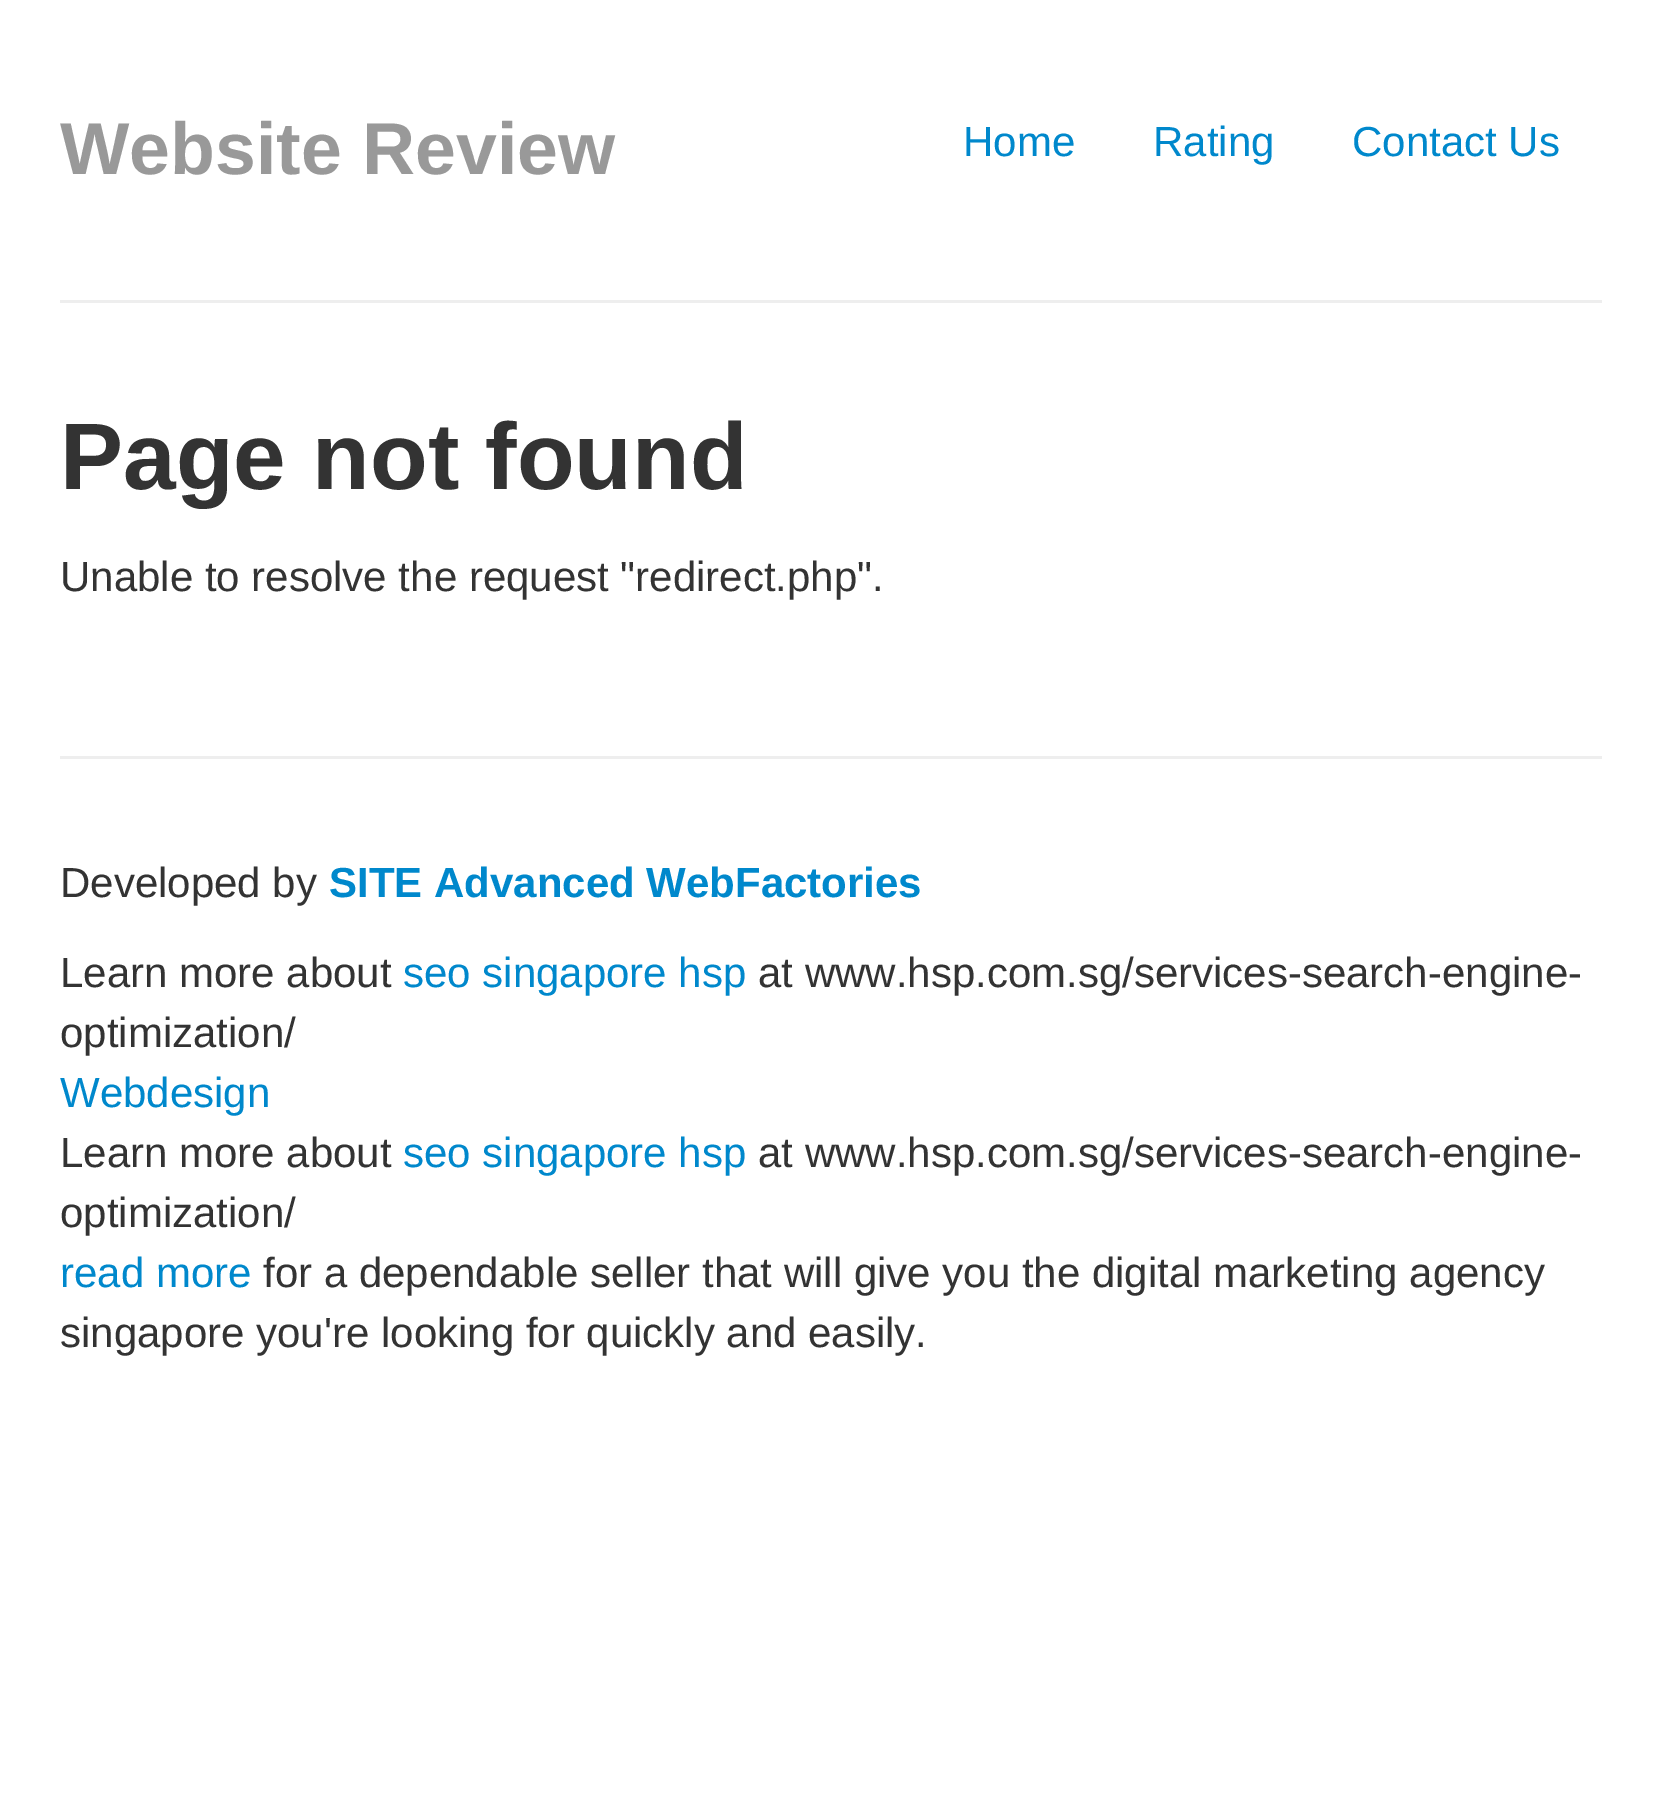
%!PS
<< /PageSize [1661 1802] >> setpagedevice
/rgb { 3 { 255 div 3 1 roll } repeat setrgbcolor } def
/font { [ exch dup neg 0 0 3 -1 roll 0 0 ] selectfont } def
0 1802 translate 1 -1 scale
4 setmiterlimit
255 255 255 rgb
0 0 1661 1802 rectfill
238 238 238 rgb
60 300 1542 3 rectfill
60 756 1542 3 rectfill
/LiberationSans-Bold 73.5 font
153 153 153 rgb
60 174 moveto (Website Review) show
/LiberationSans-Regular 42 font
0 136 204 rgb
[
  [(Home) 963 156]
  [(Rating) 1153 156]
  [(Contact Us) 1352 156]
] { aload pop moveto show } forall
/LiberationSans-Bold 94.5 font
51 51 51 rgb
60 489 moveto (Page not found) show
/LiberationSans-Regular 42 font
60 591 moveto (Unable to resolve the request "redirect.php".) show
60 897 moveto (Developed by) show
/LiberationSans-Bold 42 font
0 136 204 rgb
329 897 moveto (SITE Advanced WebFactories) show
/LiberationSans-Regular 42 font
51 51 51 rgb
60 987 moveto (Learn more about) show
0 136 204 rgb
403 987 moveto (seo singapore hsp) show
51 51 51 rgb
758 987 moveto (at www.hsp.com.sg/services-search-engine-) show
60 1047 moveto (optimization/) show
0 136 204 rgb
60 1107 moveto (Webdesign) show
51 51 51 rgb
60 1167 moveto (Learn more about) show
0 136 204 rgb
403 1167 moveto (seo singapore hsp) show
51 51 51 rgb
758 1167 moveto (at www.hsp.com.sg/services-search-engine-) show
60 1227 moveto (optimization/) show
0 136 204 rgb
60 1287 moveto (read more) show
51 51 51 rgb
263 1287 moveto (for a dependable seller that will give you the digital marketing agency) show
60 1347 moveto (singapore you're looking for quickly and easily.) show
showpage
